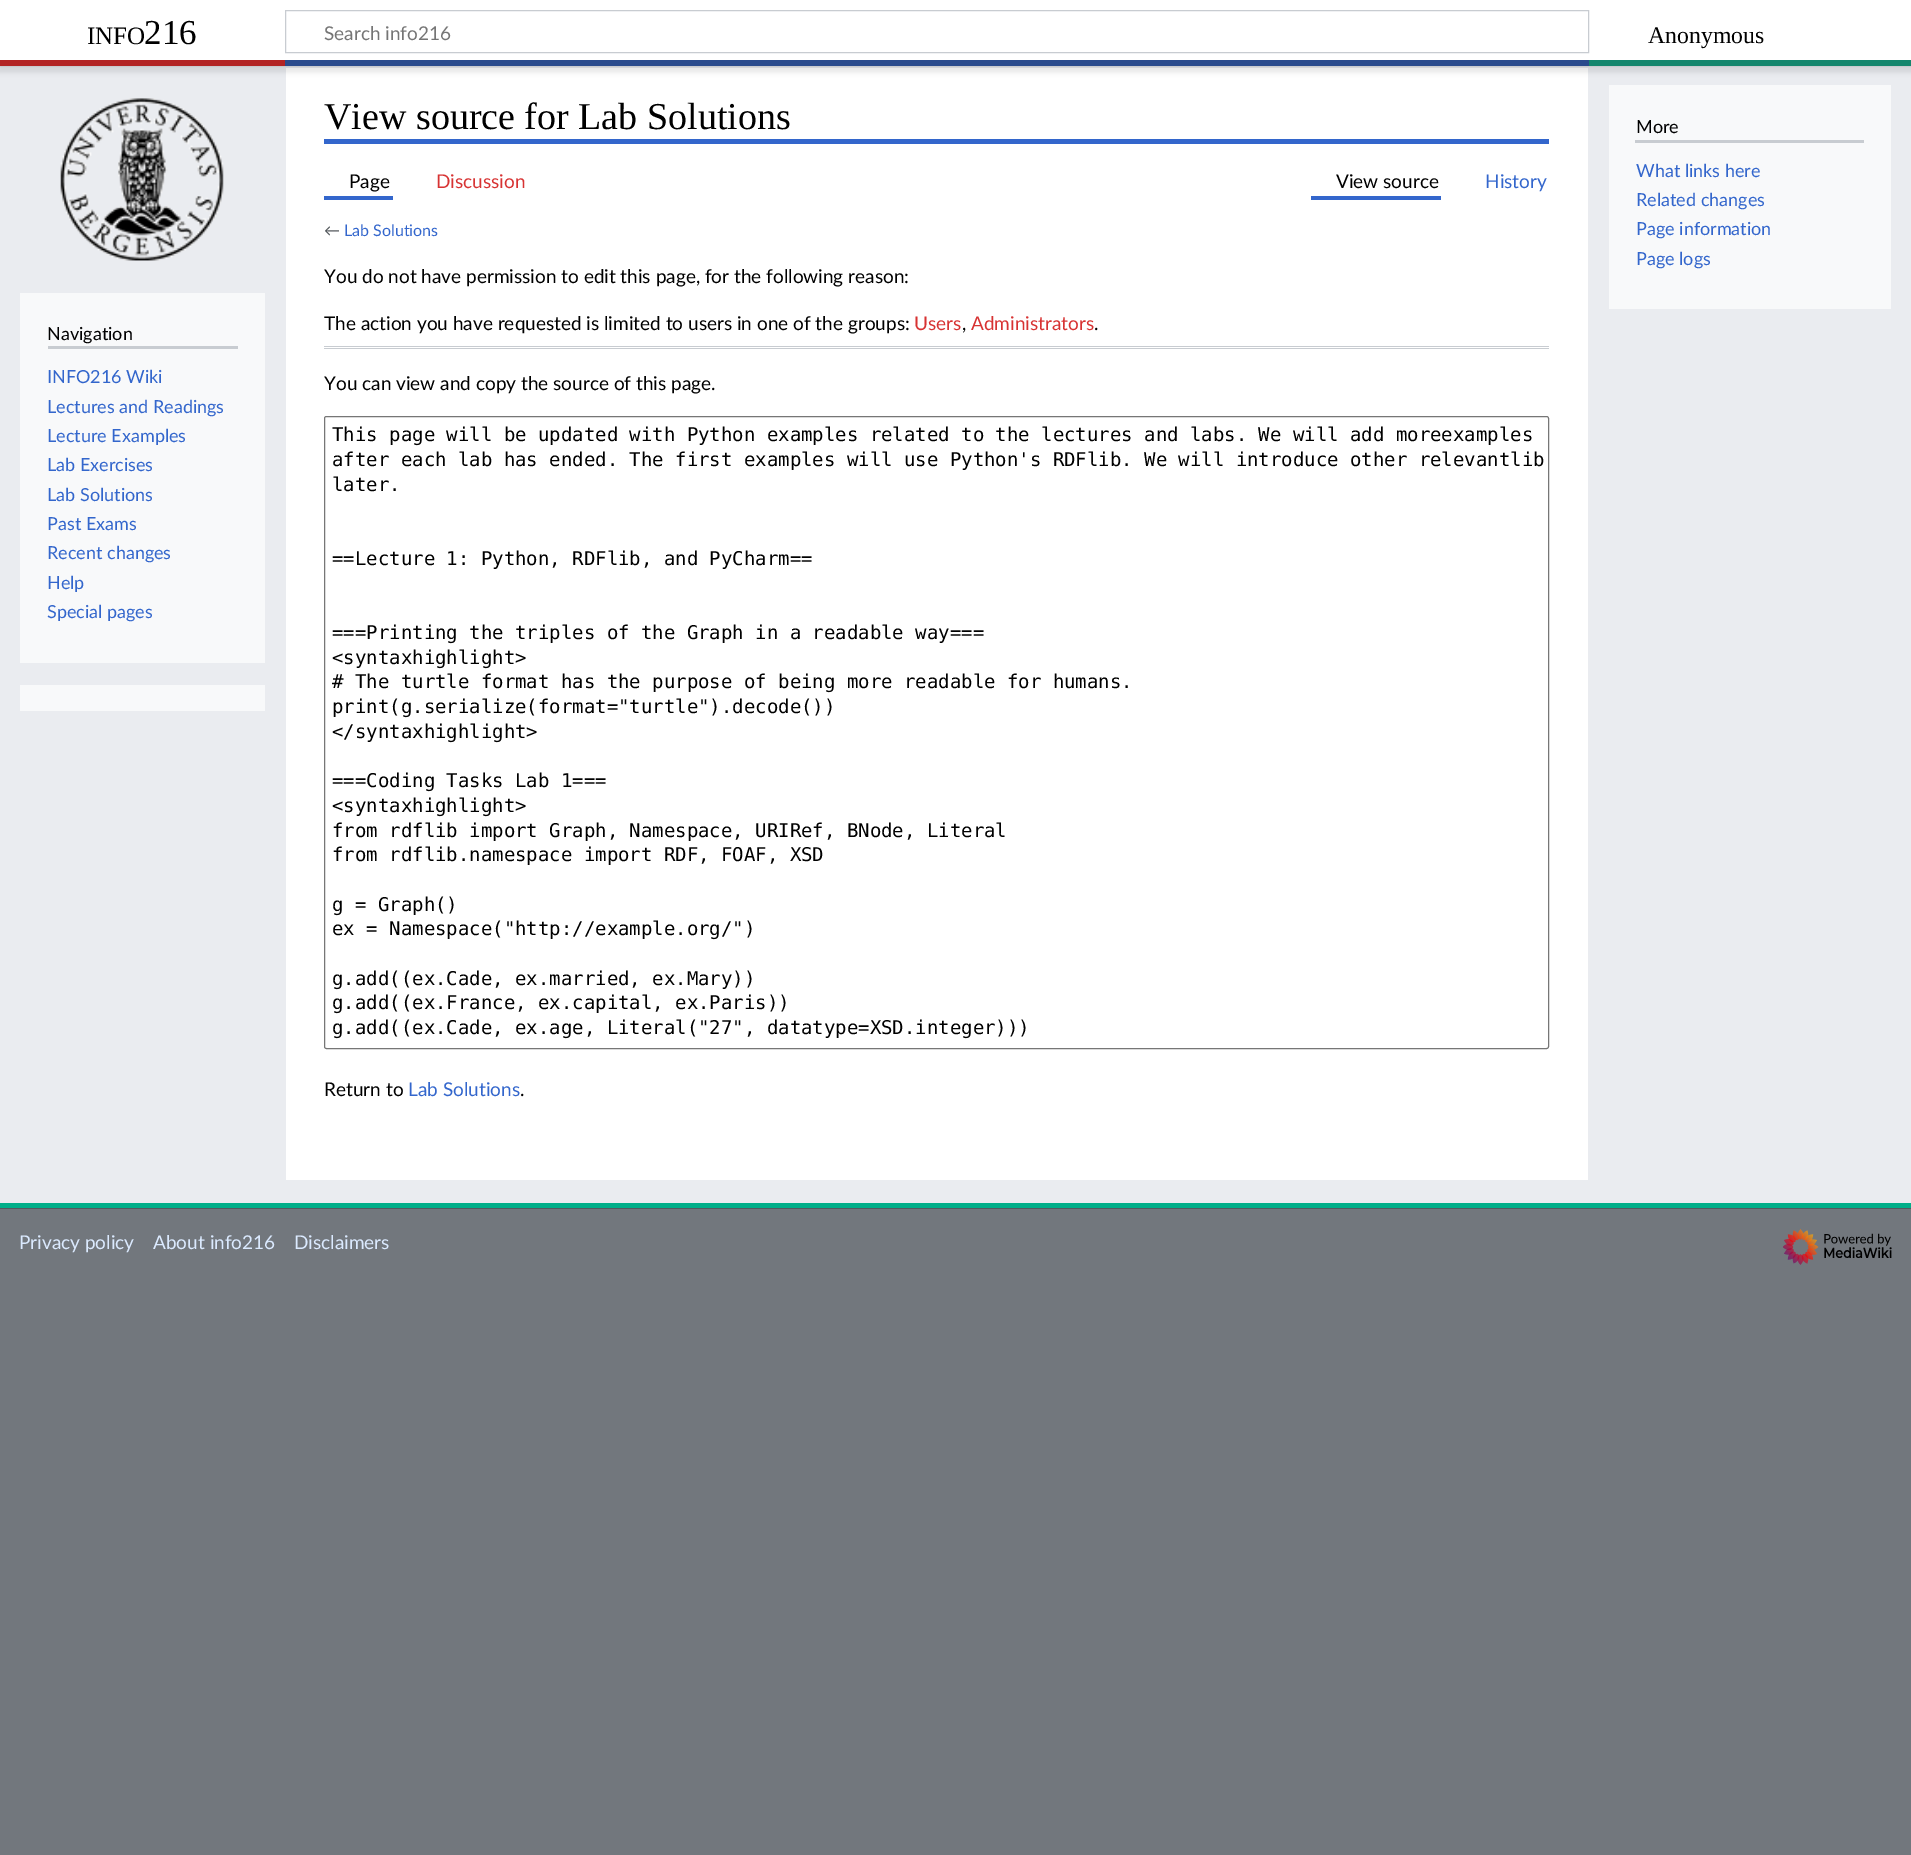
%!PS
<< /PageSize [1911 1855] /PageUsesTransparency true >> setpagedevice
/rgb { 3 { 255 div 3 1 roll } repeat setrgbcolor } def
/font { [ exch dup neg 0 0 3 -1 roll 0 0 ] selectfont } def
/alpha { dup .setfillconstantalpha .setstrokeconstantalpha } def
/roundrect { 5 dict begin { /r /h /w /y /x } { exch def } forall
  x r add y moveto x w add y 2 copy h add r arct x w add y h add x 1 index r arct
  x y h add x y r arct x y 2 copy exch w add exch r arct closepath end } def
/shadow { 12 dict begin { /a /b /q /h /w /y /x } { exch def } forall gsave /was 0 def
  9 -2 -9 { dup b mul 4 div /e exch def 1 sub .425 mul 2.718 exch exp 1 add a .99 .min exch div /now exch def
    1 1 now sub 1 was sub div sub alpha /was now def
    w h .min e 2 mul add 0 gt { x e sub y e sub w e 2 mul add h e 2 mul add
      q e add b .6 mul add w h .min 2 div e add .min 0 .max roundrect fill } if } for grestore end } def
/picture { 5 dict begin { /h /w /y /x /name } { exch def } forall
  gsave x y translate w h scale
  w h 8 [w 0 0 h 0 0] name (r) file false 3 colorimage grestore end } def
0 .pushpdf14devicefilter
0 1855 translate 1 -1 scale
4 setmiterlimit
114 119 125 rgb
0 0 1911 1855 rectfill
234 236 240 rgb
0 66 1911 1137 rectfill
255 255 255 rgb
286 68 1302 1112 rectfill
0 0 0 rgb
0 60 1911 6 0 1 0.2 shadow
-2 61 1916 12 0 2 0.07 shadow
255 255 255 rgb
0 0 1911 60 rectfill
200 204 209 rgb
285.5 10.5 1303 42 rectstroke
[
  [0 60 285 6 179 36 36]
  [285 60 1304 6 42 75 141]
  [1589 60 322 6 20 134 109]
  [0 1203 1911 5 0 175 137]
  [324 139 1225 5 51 102 204]
  [324 196 69 4 51 102 204]
  [1311 196 130 4 51 102 204]
  [324 346 1225 1 200 204 209]
  [324 348 1225 1 200 204 209]
] { aload pop rgb rectfill } forall
118 118 118 rgb
324.5 416.5 1224 632 2 roundrect stroke
248 249 250 rgb
1609 85 282 224 rectfill
200 204 209 rgb
1635 140 229 3 rectfill
(img/1.rgb) 60 98 164 163 picture
[
  [20 293 245 370 248 249 250]
  [48 346 190 3 200 204 209]
  [20 685 245 26 248 249 250]
  [0 1208 1911 1 84 89 93]
] { aload pop rgb rectfill } forall
(img/2.rgb) 1783 1229 109 36 picture
/LiberationSerif-Regular 25 font
0 0 0 rgb
87 44 moveto (INFO) show
/LiberationSerif-Regular 35 font
144 44 moveto (216) show
/Lato-Regular 19 font
117 117 117 rgb
324 40 moveto (Search info216) show
/LiberationSerif-Regular 23.75 font
0 0 0 rgb
1648 43 moveto (Anonymous) show
/LiberationSerif-Regular 38 font
324 129 moveto (View source for Lab Solutions) show
/Lato-Regular 19 font
349 188 moveto (Page) show
215 51 51 rgb
436 188 moveto (Discussion) show
0 0 0 rgb
1336 188 moveto (View source) show
51 102 204 rgb
1485 188 moveto (History) show
/Lato-Regular 16 font
84 89 93 rgb
324 236 moveto (←) show
51 102 204 rgb
344 236 moveto (Lab Solutions) show
/Lato-Regular 19 font
0 0 0 rgb
324 283 moveto (You do not have permission to edit this page, for the following reason:) show
324 330 moveto (The action you have requested is limited to users in one of the groups:) show
215 51 51 rgb
914 330 moveto (Users) show
0 0 0 rgb
962 330 moveto (,) show
215 51 51 rgb
971 330 moveto (Administrators) show
0 0 0 rgb
1094 330 moveto (.) show
324 390 moveto (You can view and copy the source of this page.) show
/DejaVuSansMono-Regular 19 font
[
  [(This page will be updated with Python examples related to the lectures and labs. We will add moreexamples) 332 441]
  [(after each lab has ended. The first examples will use Python's RDFlib. We will introduce other relevantlib) 332 466]
  [(later.) 332 491]
  [(==Lecture 1: Python, RDFlib, and PyCharm==) 332 565]
  [(===Printing the triples of the Graph in a readable way===) 332 639]
  [(<syntaxhighlight>) 332 664]
  [(# The turtle format has the purpose of being more readable for humans.) 332 688]
  [(print\(g.serialize\(format="turtle"\).decode\(\)\)) 332 713]
  [(</syntaxhighlight>) 332 738]
  [(===Coding Tasks Lab 1===) 332 787]
  [(<syntaxhighlight>) 332 812]
  [(from rdflib import Graph, Namespace, URIRef, BNode, Literal) 332 837]
  [(from rdflib.namespace import RDF, FOAF, XSD) 332 861]
  [(g = Graph\(\)) 332 911]
  [(ex = Namespace\("http://example.org/"\)) 332 935]
  [(g.add\(\(ex.Cade, ex.married, ex.Mary\)\)) 332 985]
  [(g.add\(\(ex.France, ex.capital, ex.Paris\)\)) 332 1009]
  [(g.add\(\(ex.Cade, ex.age, Literal\("27", datatype=XSD.integer\)\)\)) 332 1034]
] { aload pop moveto show } forall
/Lato-Regular 19 font
324 1096 moveto (Return to) show
51 102 204 rgb
408 1096 moveto (Lab Solutions) show
0 0 0 rgb
520 1096 moveto (.) show
/Lato-Regular 18 font
1636 133 moveto (More) show
51 102 204 rgb
[
  [(What links here) 1636 177]
  [(Related changes) 1636 206]
  [(Page information) 1636 235]
  [(Page logs) 1636 265]
] { aload pop moveto show } forall
0 0 0 rgb
47 340 moveto (Navigation) show
51 102 204 rgb
[
  [(INFO216 Wiki) 47 383]
  [(Lectures and Readings) 47 413]
  [(Lecture Examples) 47 442]
  [(Lab Exercises) 47 471]
  [(Lab Solutions) 47 501]
  [(Past Exams) 47 530]
  [(Recent changes) 47 559]
  [(Help) 47 589]
  [(Special pages) 47 618]
] { aload pop moveto show } forall
/Lato-Regular 19 font
219 234 255 rgb
[
  [(Privacy policy) 19 1249]
  [(About info216) 153 1249]
  [(Disclaimers) 294 1249]
] { aload pop moveto show } forall
.poppdf14devicefilter showpage
